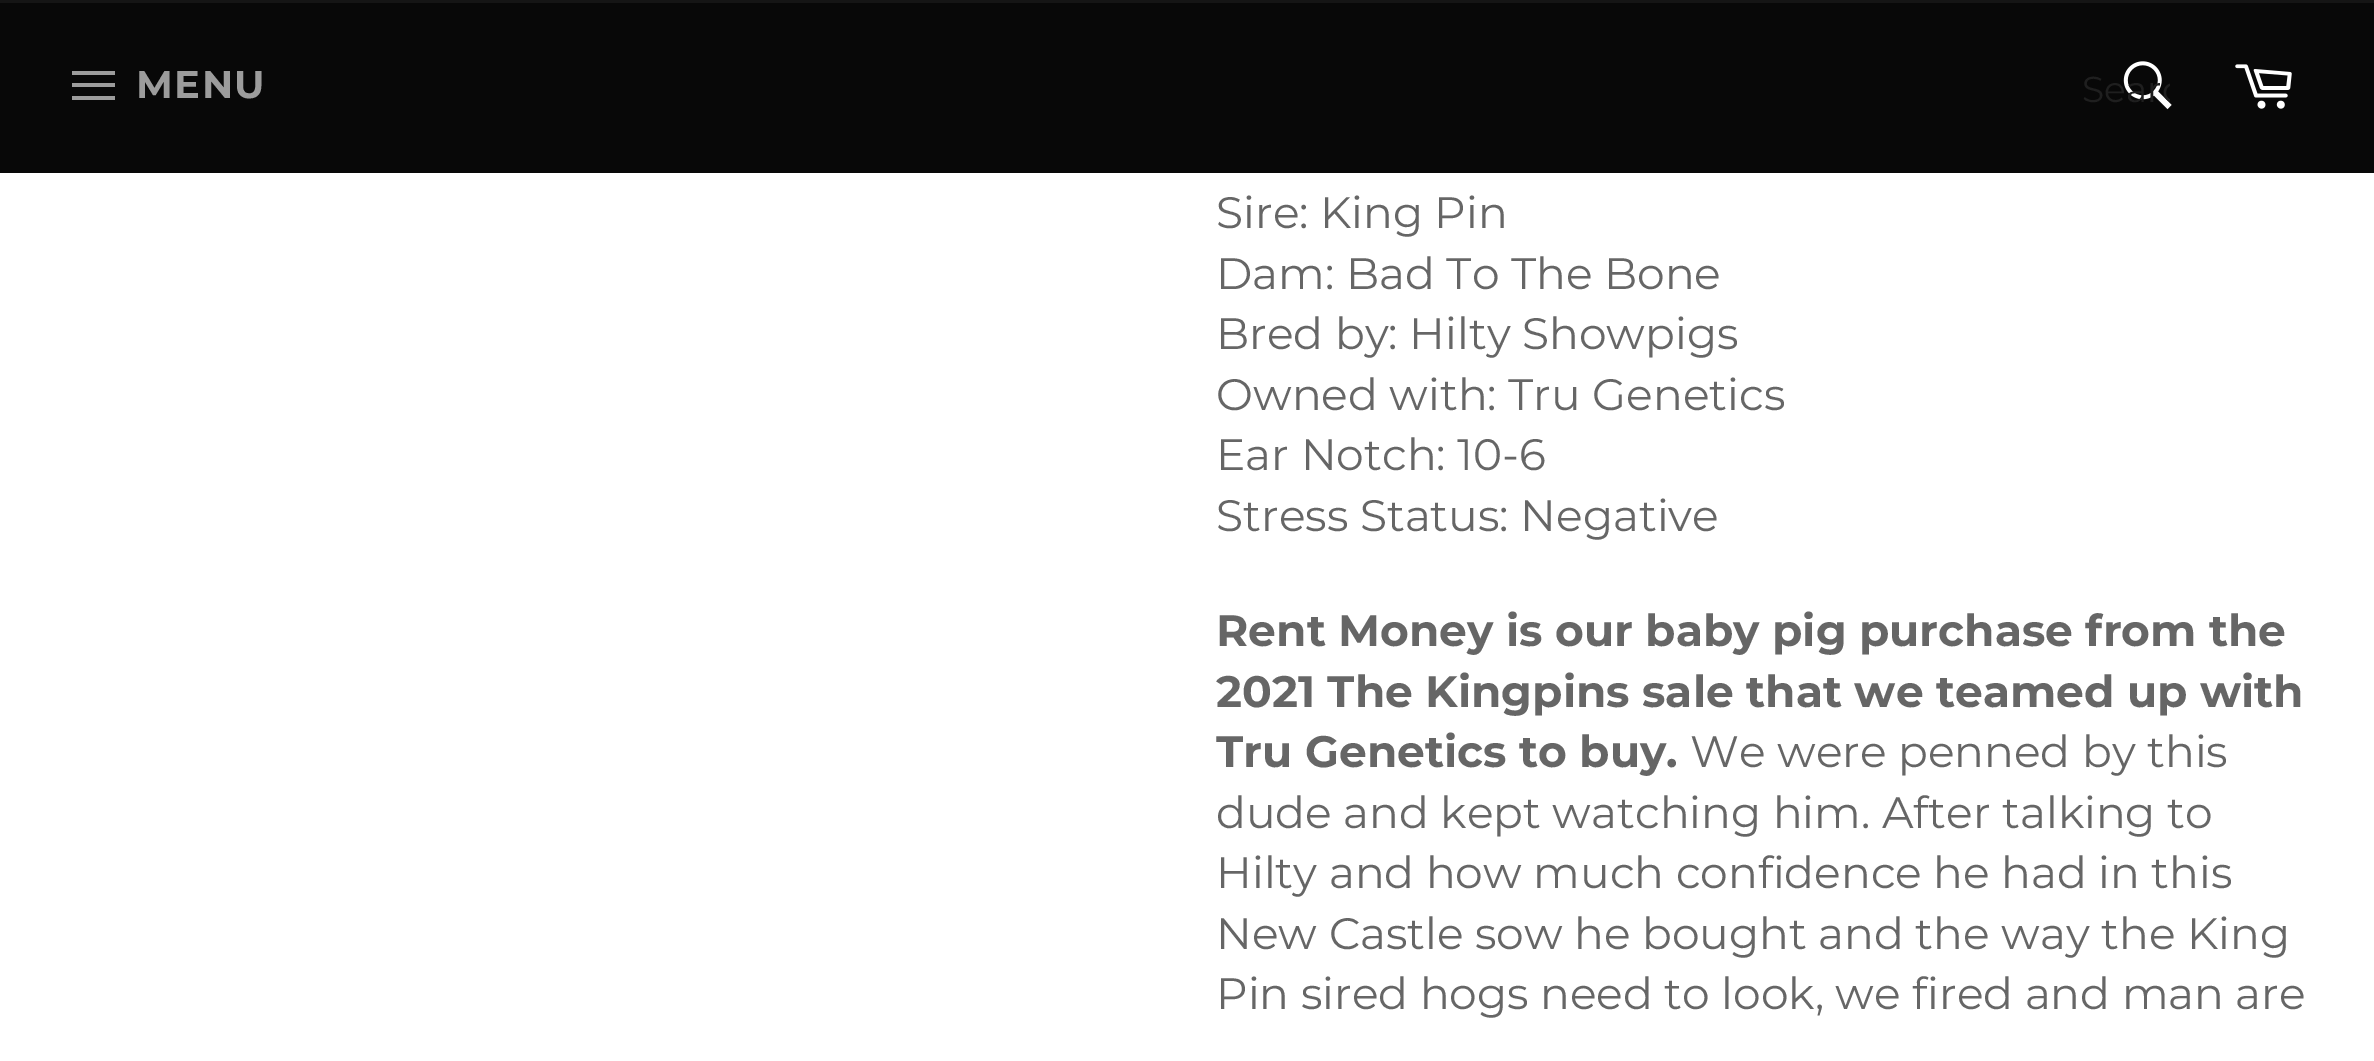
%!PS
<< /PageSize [2374 1061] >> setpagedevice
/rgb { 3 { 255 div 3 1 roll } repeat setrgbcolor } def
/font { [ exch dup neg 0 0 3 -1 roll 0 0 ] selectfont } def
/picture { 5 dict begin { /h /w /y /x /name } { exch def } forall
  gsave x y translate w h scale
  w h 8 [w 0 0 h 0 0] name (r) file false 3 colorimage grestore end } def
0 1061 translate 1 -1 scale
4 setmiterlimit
255 255 255 rgb
0 0 2374 1061 rectfill
8 8 8 rgb
0 3 2374 170 rectfill
21 21 21 rgb
0 0 2374 3 rectfill
156 156 156 rgb
72 83 moveto 115 83 lineto 115 87 lineto 72 87 lineto closepath 72 71 moveto 115 71 lineto 115 75 lineto 72 75 lineto closepath 72 96 moveto 115 96 lineto 115 100 lineto 72 100 lineto closepath fill
(img/1.rgb) 2123 61 49 49 picture
(img/2.rgb) 2235 64 57 45 picture
/Montserrat-Bold 38.5 font
136 98 moveto 1.5 0 (MENU) ashow
gsave
2082 66 88 44 rectclip
/Montserrat-Regular 36 font
31 31 31 rgb
2082 102 moveto (Searc) show
grestore
/Montserrat-Regular 44 font
102 102 102 rgb
[
  [(Sire: King Pin) 1216 228]
  [(Dam: Bad To The Bone) 1216 289]
  [(Bred by: Hilty Showpigs) 1216 349]
  [(Owned with: Tru Genetics) 1216 410]
  [(Ear Notch: 10-6) 1216 470]
  [(Stress Status: Negative) 1216 531]
] { aload pop moveto show } forall
/Montserrat-Bold 44 font
[
  [(Rent Money is our baby pig purchase from the) 1216 646]
  [(2021 The Kingpins sale that we teamed up with) 1216 707]
  [(Tru Genetics to buy.) 1216 767]
] { aload pop moveto show } forall
/Montserrat-Regular 44 font
[
  [(We were penned by this) 1690 767]
  [(dude and kept watching him. After talking to) 1216 828]
  [(Hilty and how much confidence he had in this) 1216 888]
  [(New Castle sow he bought and the way the King) 1216 949]
  [(Pin sired hogs need to look, we fired and man are) 1216 1009]
] { aload pop moveto show } forall
showpage
